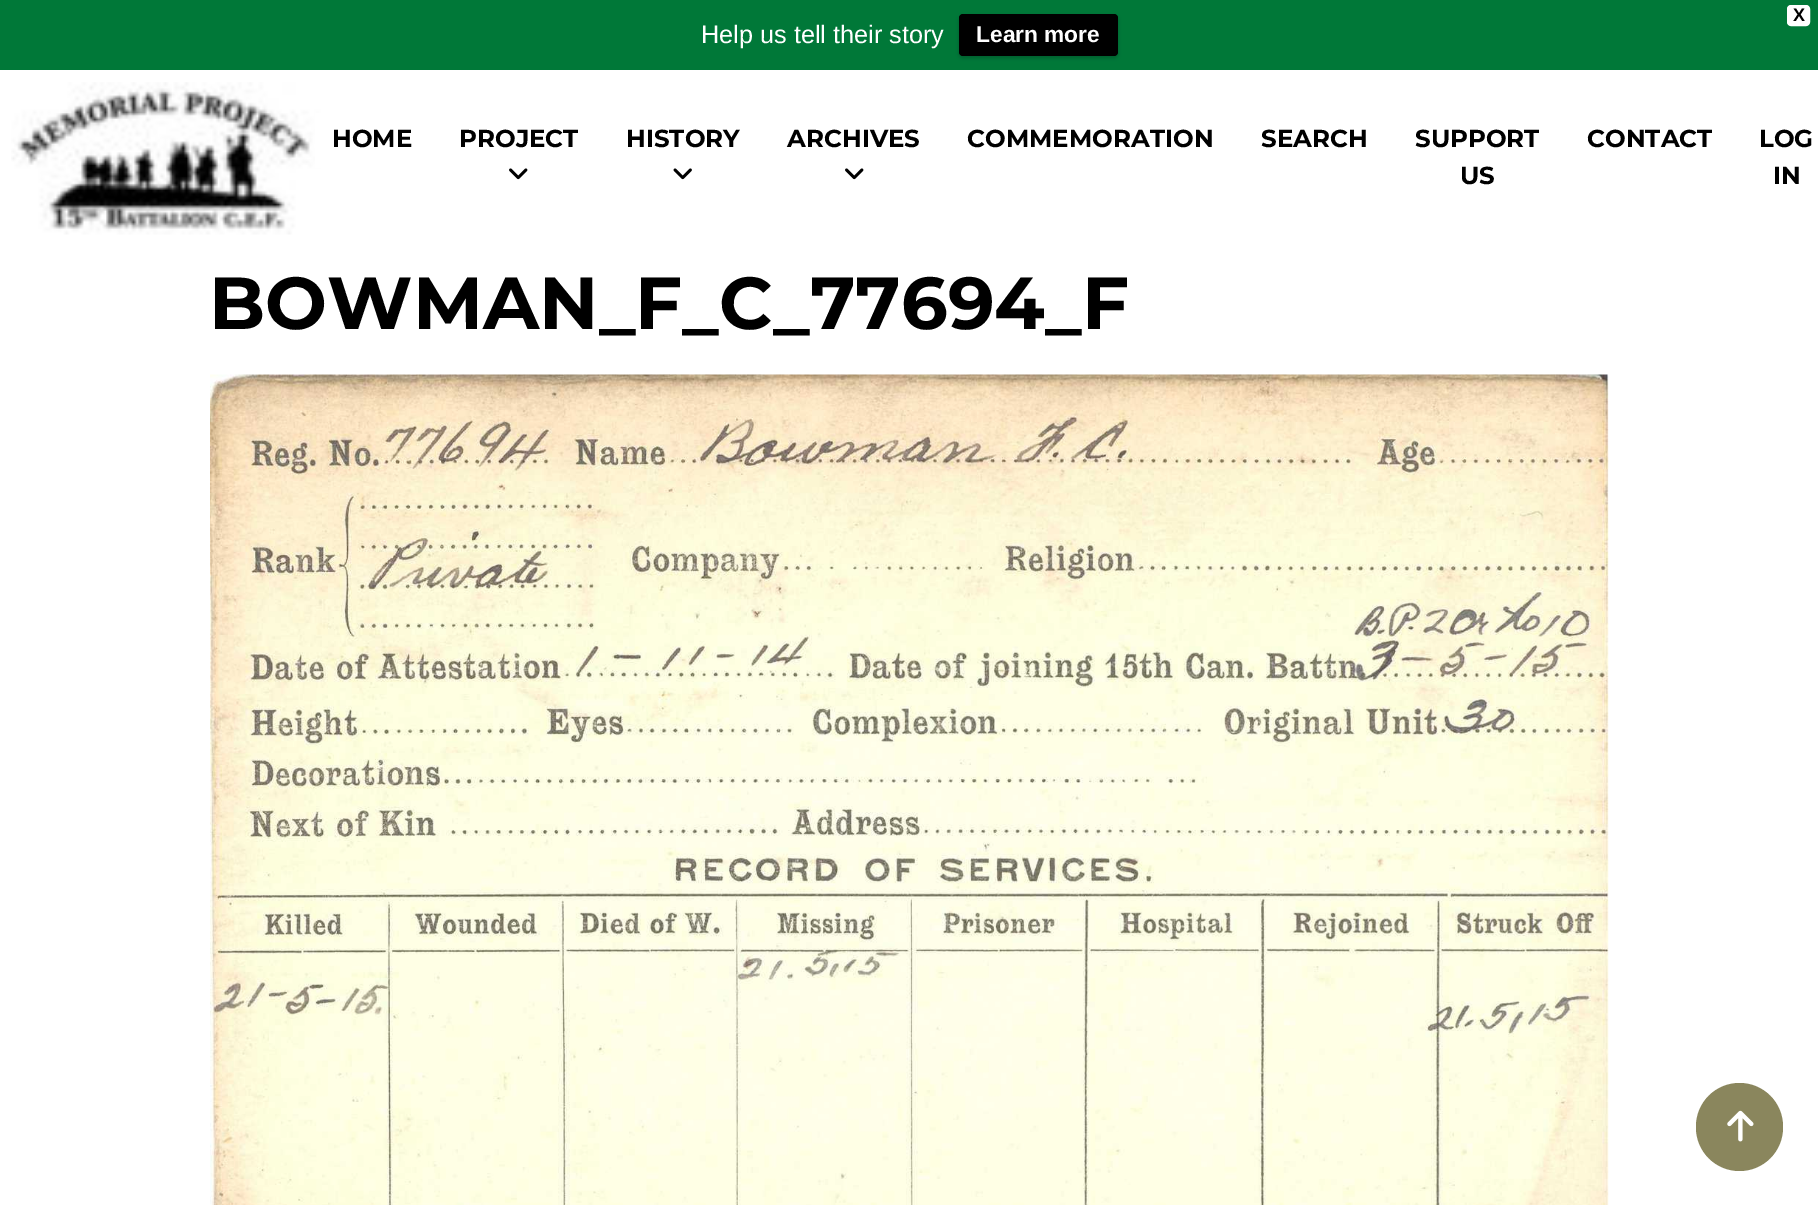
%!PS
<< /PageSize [1818 1205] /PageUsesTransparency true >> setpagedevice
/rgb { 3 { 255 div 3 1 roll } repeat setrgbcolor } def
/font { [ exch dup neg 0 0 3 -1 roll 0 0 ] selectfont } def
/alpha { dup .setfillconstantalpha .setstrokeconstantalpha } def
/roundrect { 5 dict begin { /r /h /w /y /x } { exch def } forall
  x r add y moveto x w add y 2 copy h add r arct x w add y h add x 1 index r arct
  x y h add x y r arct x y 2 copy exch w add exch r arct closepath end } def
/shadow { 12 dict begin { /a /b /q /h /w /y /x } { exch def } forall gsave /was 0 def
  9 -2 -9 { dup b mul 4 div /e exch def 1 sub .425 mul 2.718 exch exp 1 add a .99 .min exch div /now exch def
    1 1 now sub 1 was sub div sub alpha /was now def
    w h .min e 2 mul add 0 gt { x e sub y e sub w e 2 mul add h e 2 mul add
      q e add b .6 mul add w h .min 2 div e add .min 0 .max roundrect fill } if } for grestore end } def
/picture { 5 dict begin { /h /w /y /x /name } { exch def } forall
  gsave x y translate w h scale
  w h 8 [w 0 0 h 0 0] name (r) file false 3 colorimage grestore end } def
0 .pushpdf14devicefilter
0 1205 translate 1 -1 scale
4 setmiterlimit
255 255 255 rgb
0 0 1818 1205 rectfill
0 120 56 rgb
0 0 1818 70 rectfill
255 255 255 rgb
1788 6 21 19 3 roundrect gsave fill grestore
2 setlinewidth
stroke
0 0 0 rgb
959 16 159 42 4 2 0.2 shadow
959 14 159 42 4 roundrect fill
(img/1.rgb) 11 82 311 153 picture
255 255 255 rgb
315 113 7 55 rectfill
(img/2.rgb) 509 168 19 12 picture
(img/3.rgb) 673 168 19 12 picture
(img/2.rgb) 845 168 19 12 picture
(img/4.rgb) 210 374 1399 831 picture
138 134 93 rgb
1696 1083 87 88 43.5 roundrect fill
(img/5.rgb) 1727 1110 27 32 picture
/LiberationSans-Bold 18 font
0 0 0 rgb
1793 21 moveto (X) show
/LiberationSans-Regular 25.25 font
255 255 255 rgb
701 43 moveto (Help us tell their story) show
/LiberationSans-Bold 22.75 font
976 42 moveto (Learn more) show
/Montserrat-Bold 24.5 font
0 0 0 rgb
[
  [(HOME) 332 147]
  [(PROJECT) 459 147]
  [(HISTORY) 626 147]
  [(ARCHIVES) 787 147]
  [(COMMEMORATION) 967 147]
  [(SEARCH) 1261 147]
  [(SUPPORT) 1415 147]
  [(US) 1460 184]
  [(CONTACT) 1587 147]
  [(LOG) 1759 147]
  [(IN) 1773 184]
] { aload pop moveto show } forall
/Montserrat-Bold 73.5 font
209 329 moveto (BOWMAN_F_C_77694_F) show
.poppdf14devicefilter showpage
